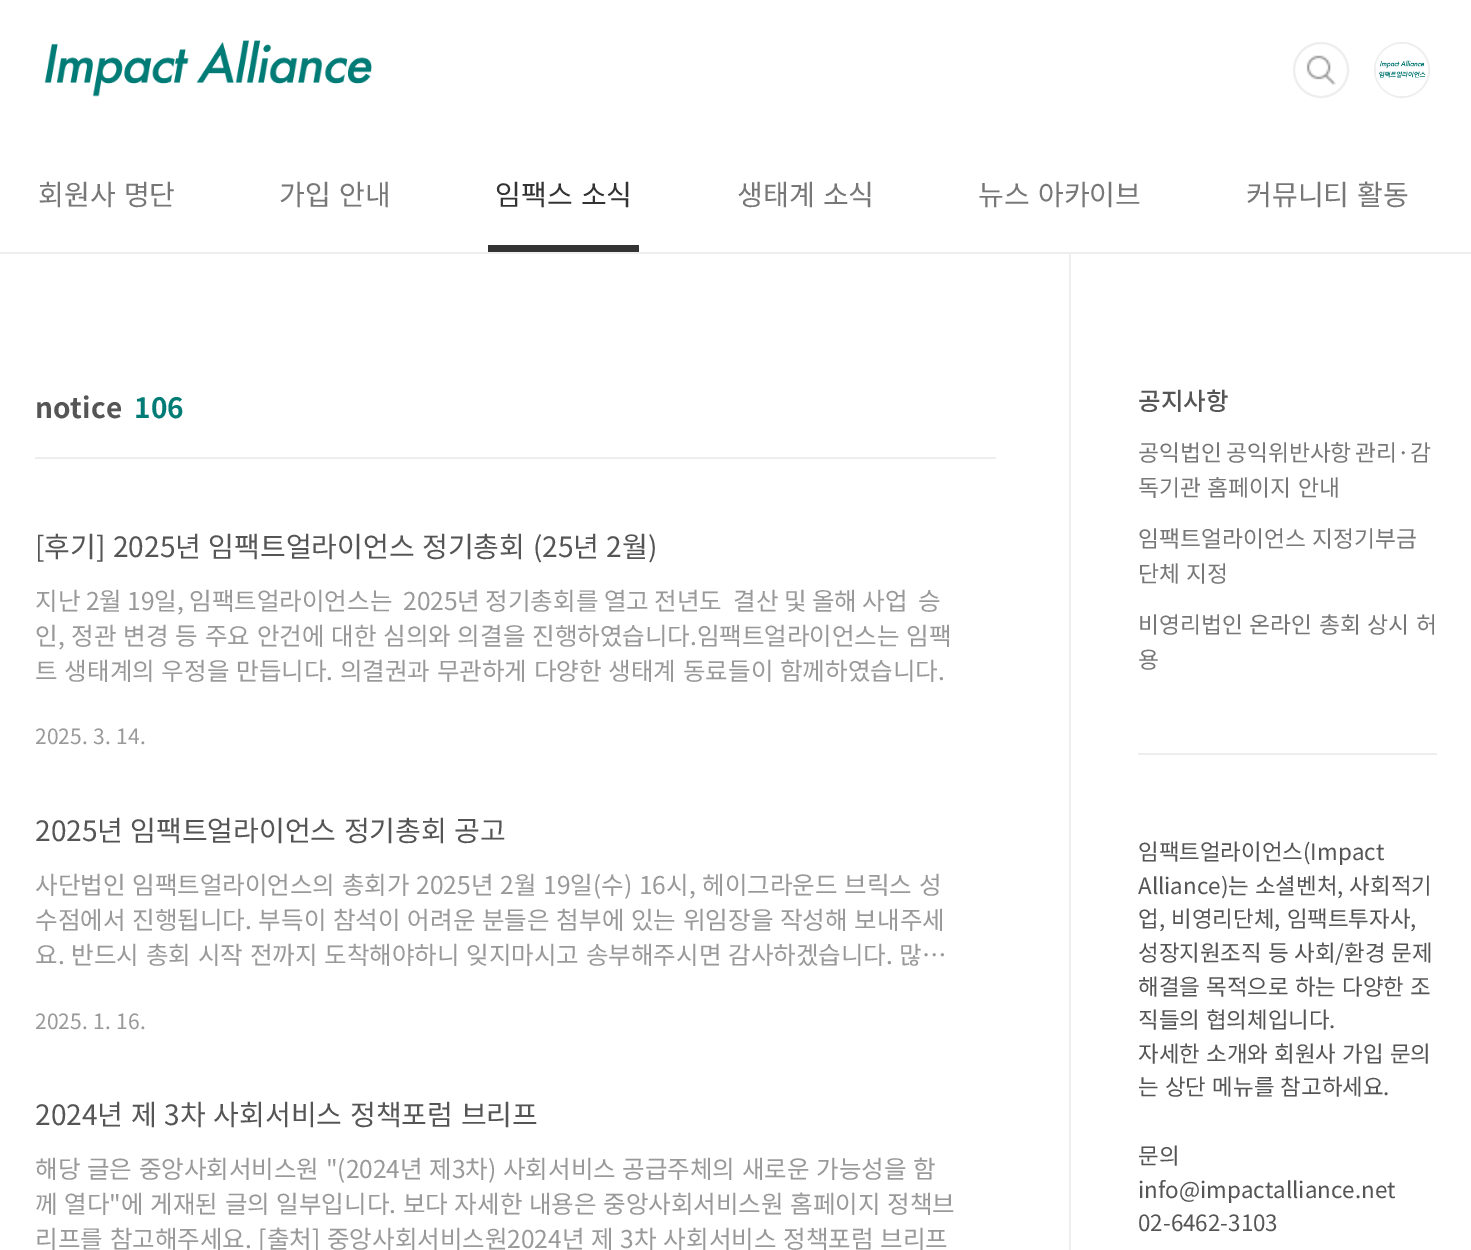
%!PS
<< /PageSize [1471 1250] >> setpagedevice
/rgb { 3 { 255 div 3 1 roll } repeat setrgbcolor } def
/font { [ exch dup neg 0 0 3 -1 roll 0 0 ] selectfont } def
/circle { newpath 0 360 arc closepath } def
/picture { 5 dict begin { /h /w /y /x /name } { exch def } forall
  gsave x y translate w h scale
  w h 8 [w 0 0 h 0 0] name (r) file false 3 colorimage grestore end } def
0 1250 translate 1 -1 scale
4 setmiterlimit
255 255 255 rgb
0 0 1471 1250 rectfill
238 238 238 rgb
0 252 1471 2 rectfill
(img/1.rgb) 44 40 328 57 picture
(img/2.rgb) 1306 55 30 30 picture
2 setlinewidth
1321 70 27 circle stroke
1402 70 27 circle stroke
(img/3.rgb) 1376 44 52 52 picture
[
  [488 245 151 7 51 51 51]
  [35 457 961 2 238 238 238]
  [1069 254 2 996 238 238 238]
  [1138 753 299 2 238 238 238]
] { aload pop rgb rectfill } forall
/NotoSansKR-Regular 28 font
119 119 119 rgb
38 205 moveto 2 0 32 (회원사 명단) widthshow
279 205 moveto 2 0 32 (가입 안내) widthshow
51 51 51 rgb
495 205 moveto 2 0 32 (임팩스 소식) widthshow
119 119 119 rgb
737 205 moveto 2 0 32 (생태계 소식) widthshow
978 205 moveto 2 0 32 (뉴스 아카이브) widthshow
1246 205 moveto 2 0 32 (커뮤니티 활동) widthshow
/NotoSansKR-Bold 28 font
85 85 85 rgb
35 418 moveto (notice) show
0 123 118 rgb
134 418 moveto (106) show
/NotoSansKR-Regular 28 font
85 85 85 rgb
35 557 moveto 1.25 0 32 ([후기] 2025년 임팩트얼라이언스 정기총회 \(25년 2월\)) widthshow
/NotoSansKR-Regular 24.5 font
153 153 153 rgb
35 610 moveto (지난 2월 19일, 임팩트얼라이언스는) show
403 610 moveto (2025년 정기총회를 열고 전년도) show
733 610 moveto (결산 및 올해 사업) show
918 610 moveto (승) show
35 645 moveto 1.4 0 32 (인, 정관 변경 등 주요 안건에 대한 심의와 의결을 진행하였습니다.임팩트얼라이언스는 임팩) widthshow
35 680 moveto 1.4 0 32 (트 생태계의 우정을 만듭니다. 의결권과 무관하게 다양한 생태계 동료들이 함께하였습니다.) widthshow
/NotoSansKR-Regular 21 font
35 744 moveto 1 0 32 (2025. 3. 14.) widthshow
/NotoSansKR-Regular 28 font
85 85 85 rgb
35 841 moveto 1 0 32 (2025년 임팩트얼라이언스 정기총회 공고) widthshow
/NotoSansKR-Regular 24.5 font
153 153 153 rgb
35 894 moveto 1.4 0 32 (사단법인 임팩트얼라이언스의 총회가 2025년 2월 19일\(수\) 16시, 헤이그라운드 브릭스 성) widthshow
35 929 moveto 1.4 0 32 (수점에서 진행됩니다. 부득이 참석이 어려운 분들은 첨부에 있는 위임장을 작성해 보내주세) widthshow
35 964 moveto 1.4 0 32 (요. 반드시 총회 시작 전까지 도착해야하니 잊지마시고 송부해주시면 감사하겠습니다. 많…) widthshow
/NotoSansKR-Regular 21 font
35 1029 moveto 1 0 32 (2025. 1. 16.) widthshow
/NotoSansKR-Regular 28 font
85 85 85 rgb
35 1125 moveto 1.5 0 32 (2024년 제 3차 사회서비스 정책포럼 브리프) widthshow
/NotoSansKR-Regular 24.5 font
153 153 153 rgb
35 1178 moveto 1.25 0 32 (해당 글은 중앙사회서비스원 "\(2024년 제3차\) 사회서비스 공급주체의 새로운 가능성을 함) widthshow
35 1213 moveto 1.25 0 32 (께 열다"에 게재된 글의 일부입니다. 보다 자세한 내용은 중앙사회서비스원 홈페이지 정책브) widthshow
35 1248 moveto 1.4 0 32 (리프를 참고해주세요. [출처] 중앙사회서비스원2024년 제 3차 사회서비스 정책포럼 브리프) widthshow
/NotoSansKR-Medium 24.5 font
85 85 85 rgb
1138 410 moveto (공지사항) show
/NotoSansKR-Regular 22.75 font
119 119 119 rgb
1138 461 moveto -1 0 32 (공익법인 공익위반사항 관리·감) widthshow
1138 496 moveto 1.5 0 32 (독기관 홈페이지 안내) widthshow
1138 547 moveto 1.5 0 32 (임팩트얼라이언스 지정기부금) widthshow
1138 582 moveto 1.5 0 32 (단체 지정) widthshow
1138 633 moveto 1.5 0 32 (비영리법인 온라인 총회 상시 허) widthshow
1138 668 moveto (용) show
/NotoSansKR-Regular 22.4 font
85 85 85 rgb
1138 860 moveto (임팩트얼라이언스\(Impact) show
1138 894 moveto 1 0 32 (Alliance\)는 소셜벤처, 사회적기) widthshow
1138 927 moveto 1.25 0 32 (업, 비영리단체, 임팩트투자사,) widthshow
1138 961 moveto 1 0 32 (성장지원조직 등 사회/환경 문제) widthshow
1138 995 moveto 1.25 0 32 (해결을 목적으로 하는 다양한 조) widthshow
1138 1028 moveto 1 0 32 (직들의 협의체입니다.) widthshow
1138 1062 moveto 1.25 0 32 (자세한 소개와 회원사 가입 문의) widthshow
1138 1095 moveto 1.25 0 32 (는 상단 메뉴를 참고하세요.) widthshow
[
  [(문의) 1138 1164]
  [(info@impactalliance.net) 1138 1198]
  [(02-6462-3103) 1138 1231]
] { aload pop moveto show } forall
showpage
